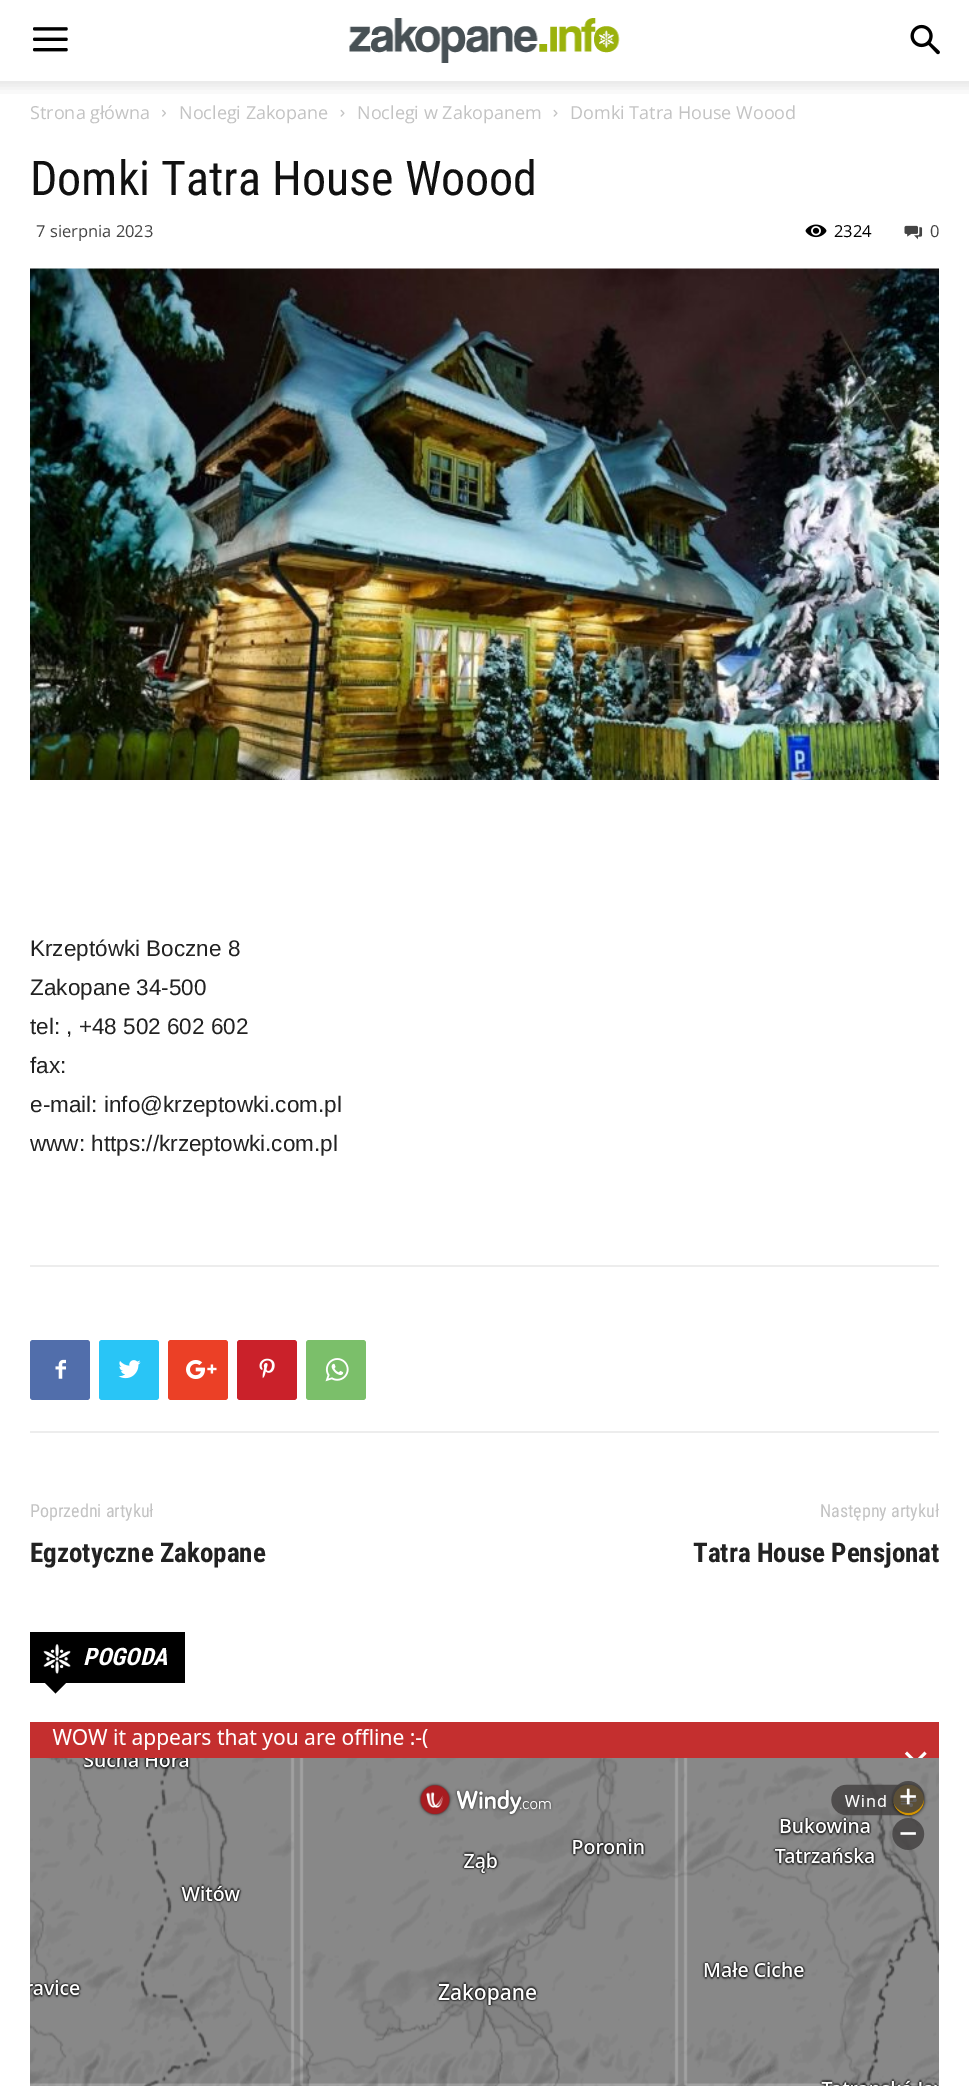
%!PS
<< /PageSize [969 2086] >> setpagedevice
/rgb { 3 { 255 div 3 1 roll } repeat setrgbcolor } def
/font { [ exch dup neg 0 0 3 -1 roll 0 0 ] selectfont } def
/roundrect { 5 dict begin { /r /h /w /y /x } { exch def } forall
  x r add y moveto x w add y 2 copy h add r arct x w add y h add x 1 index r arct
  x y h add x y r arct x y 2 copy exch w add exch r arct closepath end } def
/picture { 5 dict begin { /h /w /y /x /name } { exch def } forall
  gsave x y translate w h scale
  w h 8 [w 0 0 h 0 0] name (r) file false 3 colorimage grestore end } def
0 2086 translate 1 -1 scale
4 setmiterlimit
255 255 255 rgb
0 0 969 2086 rectfill
(img/1.rgb) 33 27 35 25 picture
(img/2.rgb) 349 18 271 45 picture
(img/3.rgb) 910 24 30 31 picture
(img/4.rgb) 0 81 969 13 picture
(img/5.rgb) 162 109 4 8 picture
(img/6.rgb) 340 109 5 8 picture
(img/6.rgb) 553 109 5 8 picture
(img/7.rgb) 805 224 22 14 picture
(img/8.rgb) 904 225 19 15 picture
(img/9.rgb) 30 268 909 512 picture
237 237 237 rgb
30 1265 909 2 rectfill
30 1431 909 2 rectfill
81 110 171 rgb
30 1340 60 60 3 roundrect fill
(img/10.rgb) 55 1359 11 20 picture
41 197 246 rgb
99 1340 60 60 3 roundrect fill
(img/11.rgb) 118 1360 23 19 picture
235 64 38 rgb
168 1340 60 60 3 roundrect fill
(img/12.rgb) 186 1360 31 19 picture
202 33 42 rgb
237 1340 60 60 3 roundrect fill
(img/13.rgb) 259 1358 16 21 picture
123 191 106 rgb
306 1340 60 60 3 roundrect fill
(img/14.rgb) 325 1358 24 24 picture
0 0 0 rgb
30 1632 155 51 rectfill
(img/15.rgb) 43 1644 28 30 picture
45 1683 moveto 66 1683 lineto 55.5 1693.5 lineto closepath fill
(img/16.rgb) 30 1722 909 364 picture
/OpenSans-Regular 18 font
195 195 195 rgb
[
  [(Strona główna) 30 119]
  [(Noclegi Zakopane) 179 119]
  [(Noclegi w Zakopanem) 357 119]
  [(Domki Tatra House Woood) 570 119]
] { aload pop moveto show } forall
/RobotoCondensed-Regular 48 font
17 17 17 rgb
30 195 moveto (Domki Tatra House Woood) show
/OpenSans-Regular 16.5 font
68 68 68 rgb
36 237 moveto (7 sierpnia 2023) show
0 0 0 rgb
834 237 moveto (2324) show
68 68 68 rgb
930 237 moveto (0) show
/LiberationSans-Regular 22.5 font
34 34 34 rgb
[
  [(Krzeptówki Boczne 8) 30 956]
  [(Zakopane 34-500) 30 995]
  [(tel: , +48 502 602 602) 30 1034]
  [(fax:) 30 1073]
  [(e-mail: info@krzeptowki.com.pl) 30 1112]
  [(www: https://krzeptowki.com.pl) 30 1151]
] { aload pop moveto show } forall
/RobotoCondensed-Regular 18 font
195 195 195 rgb
30 1517 moveto (Poprzedni artykuł) show
/RobotoCondensed-Bold 27 font
34 34 34 rgb
30 1562 moveto (Egzotyczne Zakopane) show
/RobotoCondensed-Regular 18 font
195 195 195 rgb
820 1517 moveto (Następny artykuł) show
/RobotoCondensed-Bold 27 font
34 34 34 rgb
693 1562 moveto (Tatra House Pensjonat) show
/RobotoCondensed-BoldItalic 24 font
255 255 255 rgb
83 1665 moveto (POGODA) show
showpage
